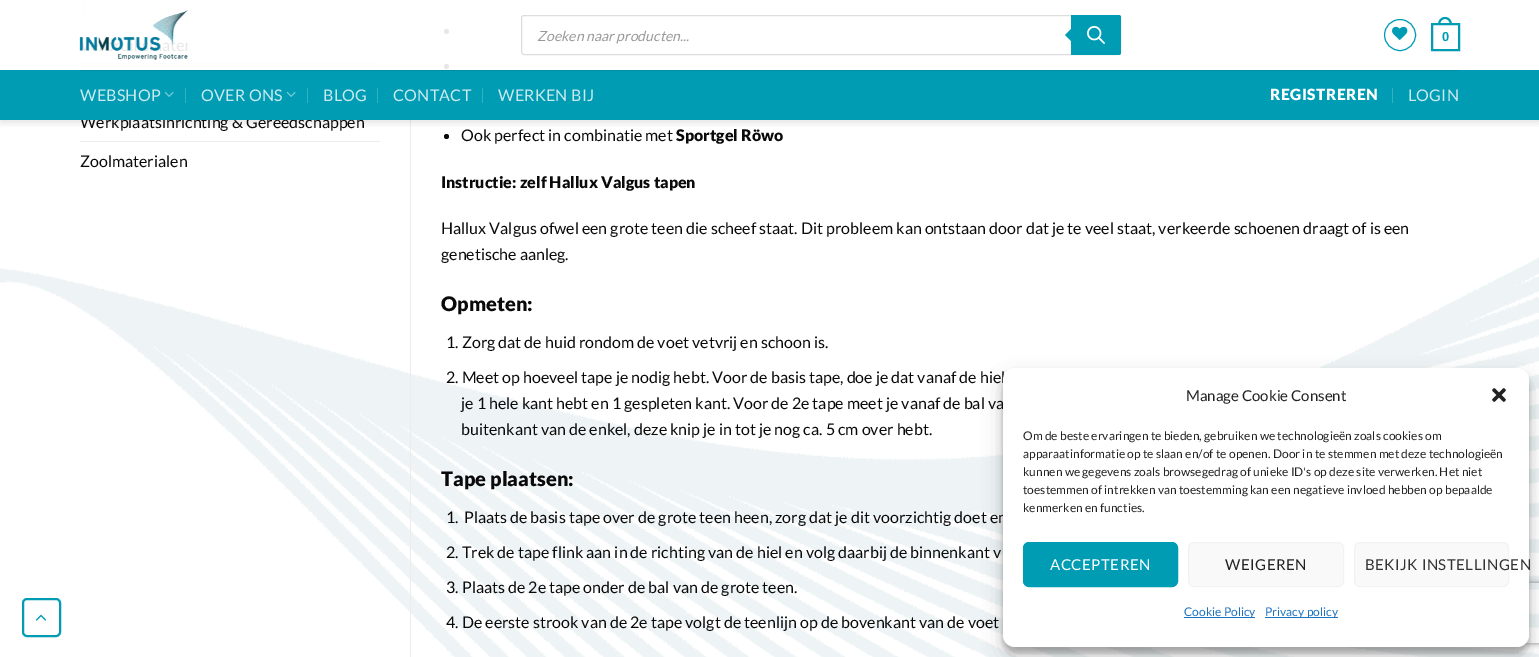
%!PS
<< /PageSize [1539 657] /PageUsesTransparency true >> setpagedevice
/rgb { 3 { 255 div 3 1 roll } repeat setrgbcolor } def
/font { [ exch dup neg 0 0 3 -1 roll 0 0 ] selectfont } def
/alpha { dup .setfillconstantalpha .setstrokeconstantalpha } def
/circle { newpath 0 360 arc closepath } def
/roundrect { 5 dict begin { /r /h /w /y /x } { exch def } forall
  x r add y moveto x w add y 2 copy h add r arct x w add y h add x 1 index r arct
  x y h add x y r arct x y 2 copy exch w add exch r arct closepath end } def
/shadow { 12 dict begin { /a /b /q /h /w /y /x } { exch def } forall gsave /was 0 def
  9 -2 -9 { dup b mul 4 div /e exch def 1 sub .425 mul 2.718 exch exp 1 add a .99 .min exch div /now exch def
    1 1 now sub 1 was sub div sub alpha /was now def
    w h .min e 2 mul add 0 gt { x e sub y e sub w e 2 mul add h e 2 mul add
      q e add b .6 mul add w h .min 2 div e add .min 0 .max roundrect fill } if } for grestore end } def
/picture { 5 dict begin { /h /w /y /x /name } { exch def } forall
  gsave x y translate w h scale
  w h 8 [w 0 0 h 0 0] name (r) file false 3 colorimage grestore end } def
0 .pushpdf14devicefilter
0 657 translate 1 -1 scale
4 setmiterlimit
255 255 255 rgb
0 0 1539 657 rectfill
[
  [83 0 1 15 221 221 221]
  [80 25 300 1 236 236 236]
  [80 63 300 1 236 236 236]
] { aload pop rgb rectfill } forall
(img/6.rgb) 0 257 1539 400 picture
410 0 1 657 rectfill
10 10 10 rgb
446.5 31.5 2.5 circle fill
446.5 66.5 2.5 circle fill
446.5 136.5 2.5 circle fill
gsave
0 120 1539 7 rectclip
0 0 0 rgb
1 1 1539 120 0 5 0.15 shadow
grestore
0.9 alpha
255 255 255 rgb
80 0 369 70 rectfill
1 alpha
(img/1.rgb) 79 10 109 50 picture
221 221 221 rgb
521.5 15.5 599 39 2.5 roundrect stroke
0 156 180 rgb
1071 15 moveto 1119 15 lineto 1120 15 1121 16 1121 17 curveto 1121 53 lineto 1121 54 1120 55 1119 55 curveto 1071 55 lineto closepath fill
1073 27 moveto 1073 43 lineto 1065 35 lineto closepath fill
(img/2.rgb) 1087 26 18 18 picture
1400 35 15.5 circle stroke
(img/3.rgb) 1392 26 16 14 picture
2 setlinewidth
1432 24 27 26 rectstroke
1445 17 moveto 1449.5 17 1452 21 1452 25 curveto 1438 25 lineto 1438 21 1440.5 17 1445 17 curveto closepath 1445 19 moveto 1448.5 19 1450 22 1450 25 curveto 1440 25 lineto 1440 22 1441.5 19 1445 19 curveto closepath eofill
23 599 37 37 4 roundrect stroke
(img/5.rgb) 35 614 12 7 picture
236 236 236 rgb
80 141 300 1 rectfill
0 0 0 rgb
1003 374 526 279 12 3 0.23 shadow
1003 378 526 279 12 10 0.19 shadow
gsave
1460 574 moveto 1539 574 lineto 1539 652 lineto 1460 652 lineto closepath 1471 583 moveto 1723 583 lineto 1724 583 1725 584 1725 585 curveto 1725 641 lineto 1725 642 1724 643 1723 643 curveto 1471 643 lineto 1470 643 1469 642 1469 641 curveto 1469 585 lineto 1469 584 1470 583 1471 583 curveto closepath eoclip newpath
128 128 128 rgb
1469 583 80 60 2 2.5 1 shadow
grestore
/Lato-Italic 14 font
153 153 153 rgb
537 41 moveto (Zoeken naar producten...) show
/LiberationSans-Bold 13 font
0 156 180 rgb
1442 41 moveto (0) show
/Lato-Regular 16 font
10 10 10 rgb
80 128 moveto (Werkplaatsinrichting & Gereedschappen) show
[
  [0 70 1539 50 0 156 180]
  [80 70 1380 1 1 141 163]
  [1392 88 1 15 51 176 195]
] { aload pop rgb rectfill } forall
204 235 240 rgb
1408 101 moveto 0.25 0 (LOGIN) ashow
/Lato-Black 15.5 font
255 255 255 rgb
1270 100 moveto 0.5 0 (REGISTREREN) ashow
51 176 195 rgb
482 88 1 15 rectfill
/Lato-Regular 16 font
204 235 240 rgb
498 101 moveto 0.25 0 (WERKEN BIJ) ashow
51 176 195 rgb
377 88 1 15 rectfill
204 235 240 rgb
393 101 moveto 0.25 0 (CONTACT) ashow
51 176 195 rgb
307 88 1 15 rectfill
204 235 240 rgb
323 101 moveto 0.25 0 (BLOG) ashow
51 176 195 rgb
185 88 1 15 rectfill
(img/4.rgb) 286 91 10 6 picture
204 235 240 rgb
201 101 moveto 0.25 0 (OVER ONS) ashow
(img/4.rgb) 164 91 10 6 picture
80 101 moveto 0.25 0 (WEBSHOP) ashow
10 10 10 rgb
80 167 moveto (Zoolmaterialen) show
461 141 moveto (Ook perfect in combinatie met) show
/Lato-Black 16 font
676 141 moveto (Sportgel Röwo) show
441 188 moveto (Instructie: zelf Hallux Valgus tapen) show
/Lato-Regular 16 font
441 234 moveto (Hallux Valgus ofwel een grote teen die scheef staat. Dit probleem kan ontstaan door dat je te veel staat, verkeerde schoenen draagt of is een) show
441 260 moveto (genetische aanleg.) show
/Lato-Black 20 font
441 311 moveto (Opmeten:) show
/Lato-Regular 16 font
[
  [(1. Zorg dat de huid rondom de voet vetvrij en schoon is.) 446 348]
  [(2. Meet op hoeveel tape je nodig hebt. Voor de basis tape, doe je dat vanaf de hiel) 446 383]
  [(je 1 hele kant hebt en 1 gespleten kant. Voor de 2e tape meet je vanaf de bal va) 461 409]
  [(buitenkant van de enkel, deze knip je in tot je nog ca. 5 cm over hebt.) 461 435]
] { aload pop moveto show } forall
/Lato-Black 20 font
441 486 moveto (Tape plaatsen:) show
/Lato-Regular 16 font
[
  [(1.) 446 523]
  [(Plaats de basis tape over de grote teen heen, zorg dat je dit voorzichtig doet en) 464 523]
  [(2. Trek de tape flink aan in de richting van de hiel en volg daarbij de binnenkant v) 446 558]
  [(3. Plaats de 2e tape onder de bal van de grote teen.) 446 593]
  [(4. De eerste strook van de 2e tape volgt de teenlijn op de bovenkant van de voet) 446 628]
] { aload pop moveto show } forall
255 255 255 rgb
1003 368 526 279 12 roundrect fill
/Lato-Regular 15 font
34 34 34 rgb
1186 401 moveto (Manage Cookie Consent) show
(img/7.rgb) 1492 388 14 14 picture
/Lato-Regular 12 font
[
  [(Om de beste ervaringen te bieden, gebruiken we technologieën zoals cookies om) 1023 440]
  [(apparaatinformatie op te slaan en/of te openen. Door in te stemmen met deze technologieën) 1023 458]
  [(kunnen we gegevens zoals browsegedrag of unieke ID's op deze site verwerken. Het niet) 1023 476]
  [(toestemmen of intrekken van toestemming kan een negatieve invloed hebben op bepaalde) 1023 494]
  [(kenmerken en functies.) 1023 512]
] { aload pop moveto show } forall
0 156 180 rgb
1023.5 542.5 154 44 5.5 roundrect gsave fill grestore
1 setlinewidth
stroke
/Lato-Regular 15 font
255 255 255 rgb
1050 570 moveto 0.5 0 (ACCEPTEREN) ashow
249 249 249 rgb
1188.5 542.5 155 44 5.5 roundrect gsave fill grestore
242 242 242 rgb
stroke
34 34 34 rgb
1225 570 moveto 0.5 0 (WEIGEREN) ashow
249 249 249 rgb
1354.5 542.5 154 44 5.5 roundrect gsave fill grestore
242 242 242 rgb
stroke
51 51 51 rgb
1365 570 moveto 0.5 0 (BEKIJK INSTELLINGEN) ashow
30 115 190 rgb
1184 617 71 1 rectfill
/Lato-Regular 12 font
1184 616 moveto (Cookie Policy) show
1265 617 73 1 rectfill
1265 616 moveto (Privacy policy) show
.poppdf14devicefilter showpage
